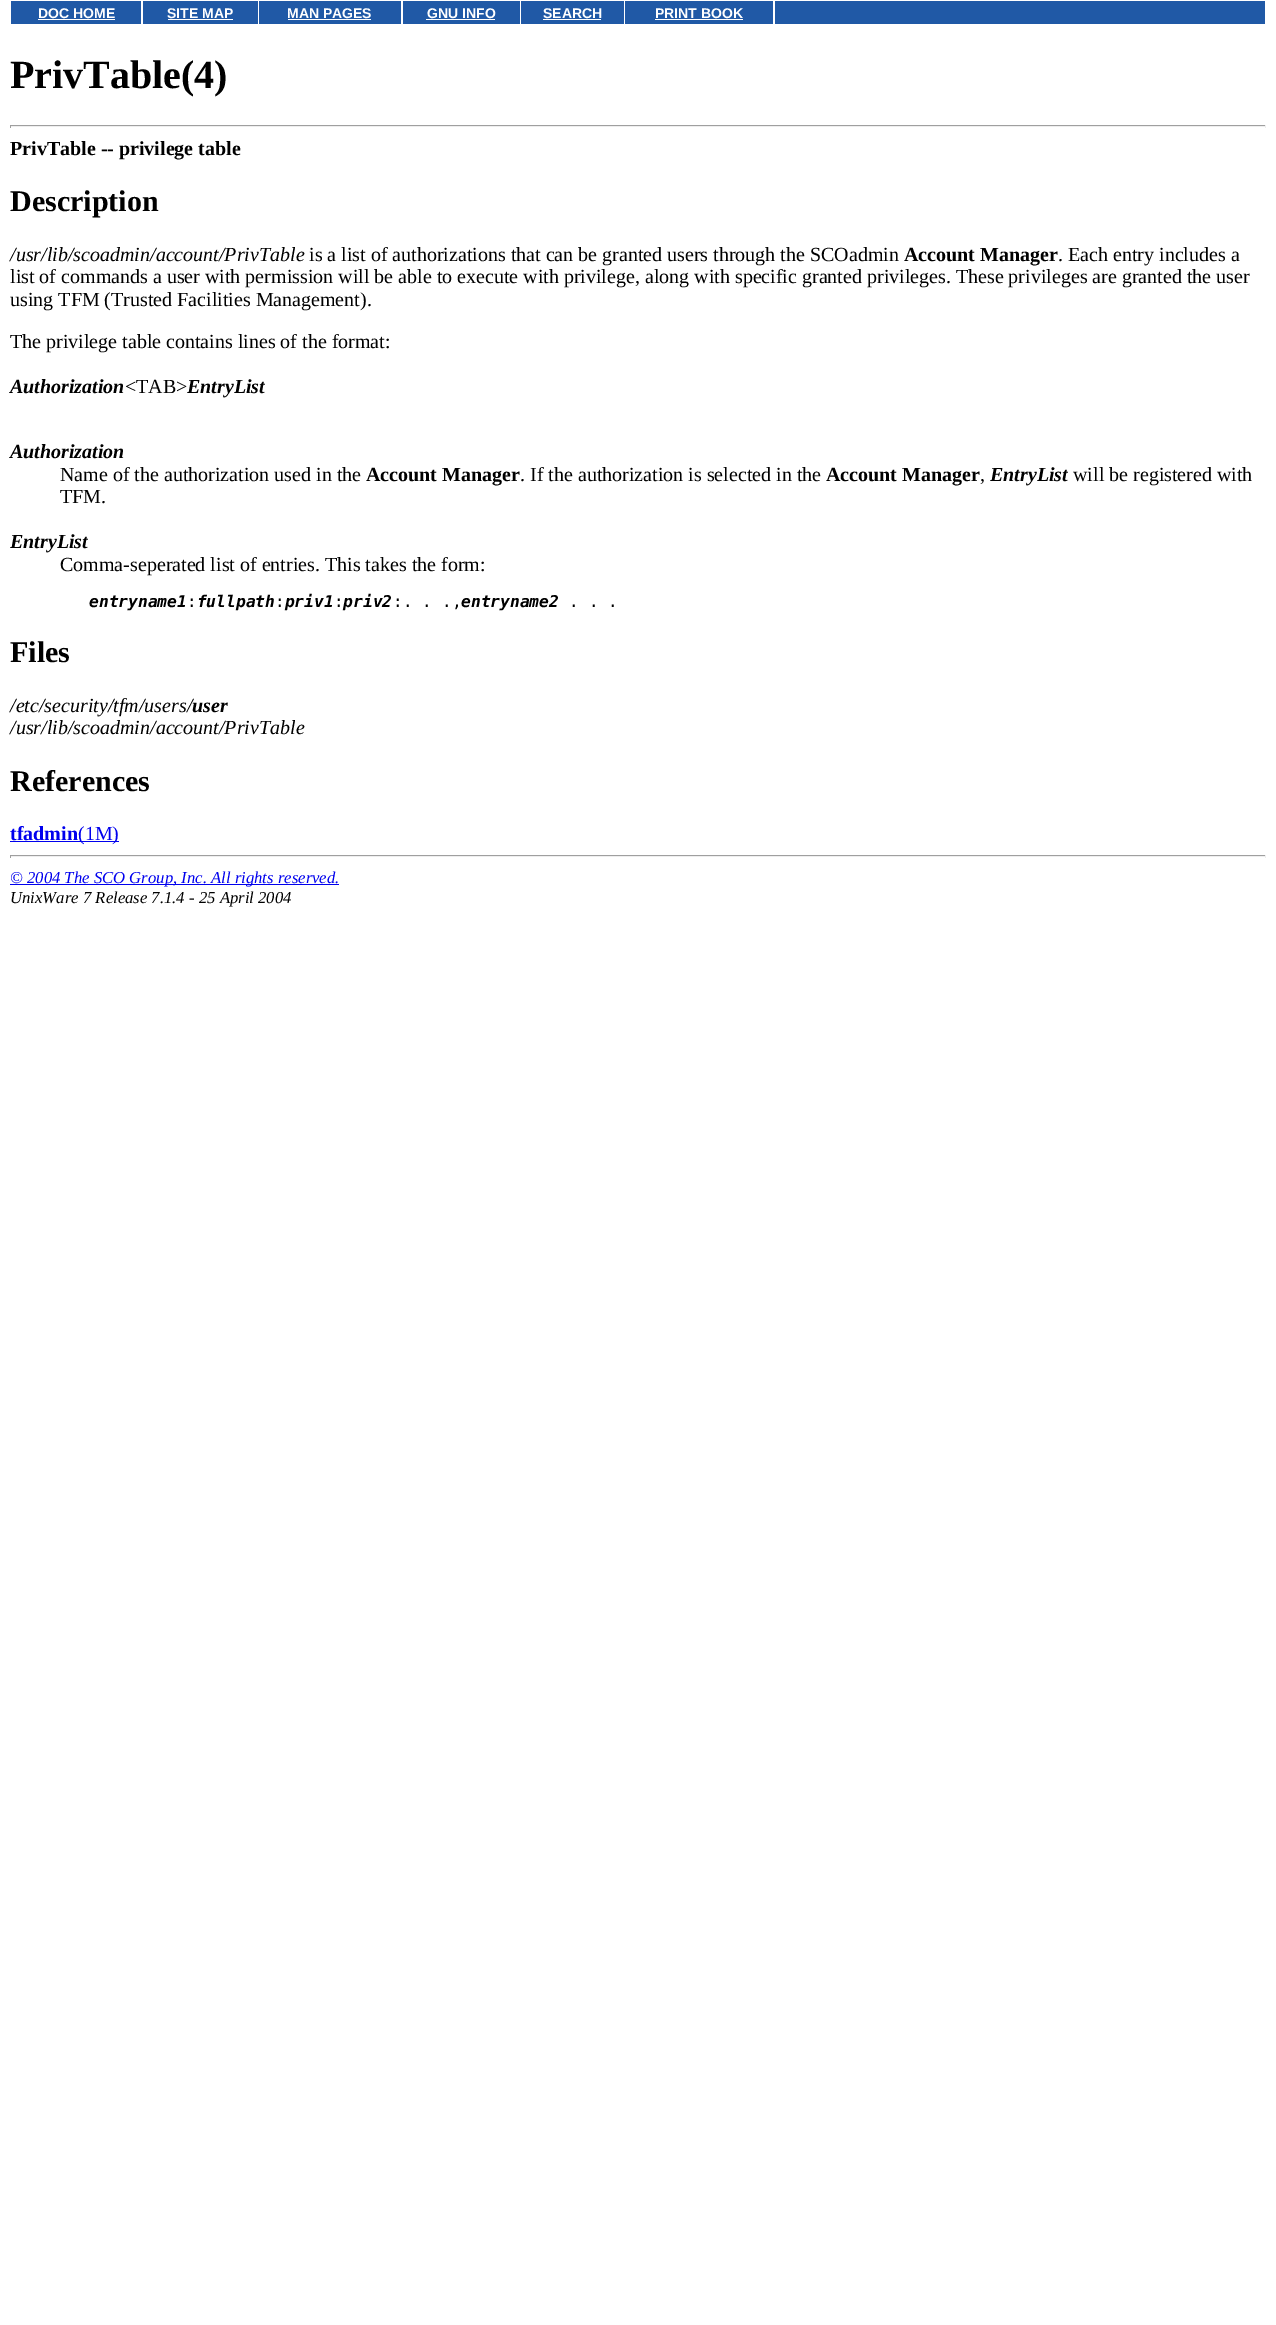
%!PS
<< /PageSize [1276 2325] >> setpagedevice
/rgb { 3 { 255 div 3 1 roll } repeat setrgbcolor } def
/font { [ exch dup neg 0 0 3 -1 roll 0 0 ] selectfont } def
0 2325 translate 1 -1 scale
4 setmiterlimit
255 255 255 rgb
0 0 1276 2325 rectfill
[
  [11 1 130 23 32 89 166]
  [38 19 77 1 255 255 255]
  [143 1 115 23 32 89 166]
  [168 19 65 1 255 255 255]
  [259 1 142 23 32 89 166]
  [288 19 83 1 255 255 255]
  [403 1 117 23 32 89 166]
  [426 19 69 1 255 255 255]
  [521 1 103 23 32 89 166]
  [543 19 58 1 255 255 255]
  [625 1 148 23 32 89 166]
  [655 19 88 1 255 255 255]
  [775 1 490 23 32 89 166]
  [10 125 1256 1 159 159 159]
  [1265 125 1 3 238 238 238]
  [10 126 1256 1 238 238 238]
  [10 125 1 3 159 159 159]
  [10 841 109 1 0 0 238]
  [10 855 1256 1 159 159 159]
  [1265 855 1 3 238 238 238]
  [10 856 1256 1 238 238 238]
  [10 855 1 3 159 159 159]
  [10 884 329 1 0 0 238]
] { aload pop rgb rectfill } forall
/LiberationSans-Bold 14 font
255 255 255 rgb
[
  [(DOC HOME) 38 18]
  [(SITE MAP) 167 18]
  [(MAN PAGES) 287 18]
  [(GNU INFO) 427 18]
  [(SEARCH) 543 18]
  [(PRINT BOOK) 655 18]
] { aload pop moveto show } forall
/LiberationSerif-Bold 40 font
0 0 0 rgb
10 88 moveto (PrivTable\(4\)) show
/LiberationSerif-Bold 20 font
10 155 moveto (PrivTable -- privilege table) show
/LiberationSerif-Bold 30 font
10 211 moveto (Description) show
/LiberationSerif-Italic 20 font
10 261 moveto (/usr/lib/scoadmin/account/PrivTable) show
/LiberationSerif-Regular 20 font
309 261 moveto (is a list of authorizations that can be granted users through the SCOadmin) show
/LiberationSerif-Bold 20 font
904 261 moveto (Account Manager) show
/LiberationSerif-Regular 20 font
[
  [(. Each entry includes a) 1058 261]
  [(list of commands a user with permission will be able to execute with privilege, along with specific granted privileges. These privileges are granted the user) 10 283]
  [(using TFM \(Trusted Facilities Management\).) 10 306]
  [(The privilege table contains lines of the format:) 10 348]
] { aload pop moveto show } forall
/LiberationSerif-BoldItalic 20 font
10 393 moveto (Authorization) show
/LiberationSerif-Regular 20 font
125 393 moveto (<TAB>) show
/LiberationSerif-BoldItalic 20 font
187 393 moveto (EntryList) show
10 458 moveto (Authorization) show
/LiberationSerif-Regular 20 font
60 481 moveto (Name of the authorization used in the) show
/LiberationSerif-Bold 20 font
366 481 moveto (Account Manager) show
/LiberationSerif-Regular 20 font
520 481 moveto (. If the authorization is selected in the) show
/LiberationSerif-Bold 20 font
826 481 moveto (Account Manager) show
/LiberationSerif-Regular 20 font
980 481 moveto (,) show
/LiberationSerif-BoldItalic 20 font
990 481 moveto (EntryList) show
/LiberationSerif-Regular 20 font
1073 481 moveto (will be registered with) show
60 503 moveto (TFM.) show
/LiberationSerif-BoldItalic 20 font
10 548 moveto (EntryList) show
/LiberationSerif-Regular 20 font
60 571 moveto (Comma-seperated list of entries. This takes the form:) show
/DejaVuSansMono-BoldItalic 16.25 font
89 607 moveto (entryname1 fullpath priv1 priv2) show
461 607 moveto (entryname2) show
/DejaVuSansMono-Regular 16.25 font
[
  [(:) 187 607]
  [(:) 275 607]
  [(:) 334 607]
  [(:. . .,) 393 607]
  [(. . .) 569 607]
] { aload pop moveto show } forall
/LiberationSerif-Bold 30 font
10 662 moveto (Files) show
/LiberationSerif-Italic 20 font
10 712 moveto (/etc/security/tfm/users/) show
/LiberationSerif-BoldItalic 20 font
192 712 moveto (user) show
/LiberationSerif-Italic 20 font
10 734 moveto (/usr/lib/scoadmin/account/PrivTable) show
/LiberationSerif-Bold 30 font
10 791 moveto (References) show
/LiberationSerif-Bold 20 font
0 0 238 rgb
10 840 moveto (tfadmin) show
/LiberationSerif-Regular 20 font
78 840 moveto (\(1M\)) show
/LiberationSerif-Italic 16.7 font
10 883 moveto (© 2004 The SCO Group, Inc. All rights reserved.) show
0 0 0 rgb
10 903 moveto (UnixWare 7 Release 7.1.4 - 25 April 2004) show
showpage
